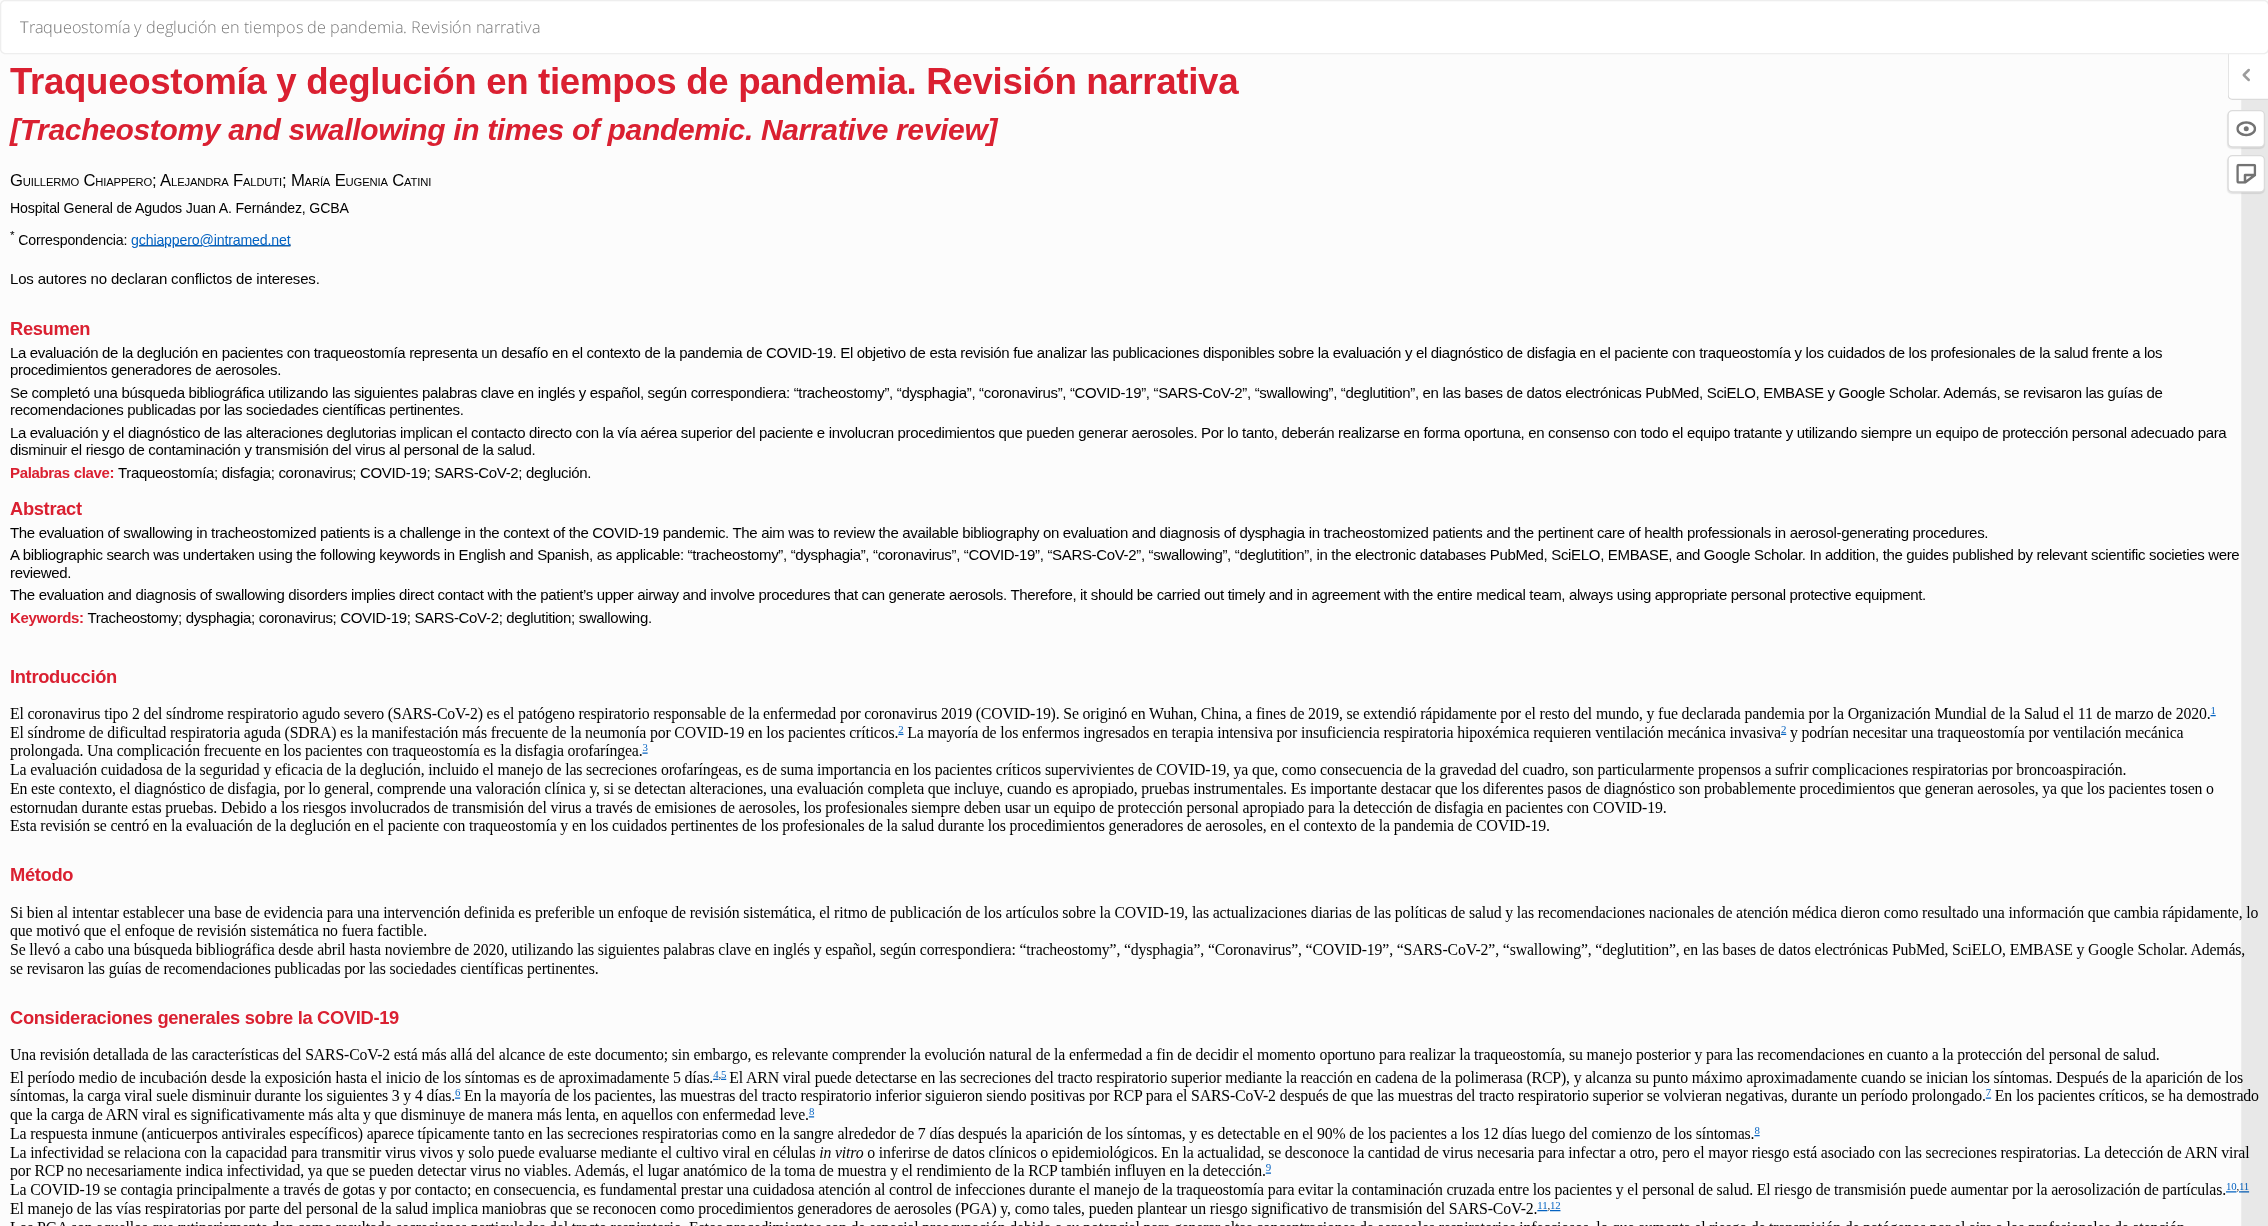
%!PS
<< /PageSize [2268 1226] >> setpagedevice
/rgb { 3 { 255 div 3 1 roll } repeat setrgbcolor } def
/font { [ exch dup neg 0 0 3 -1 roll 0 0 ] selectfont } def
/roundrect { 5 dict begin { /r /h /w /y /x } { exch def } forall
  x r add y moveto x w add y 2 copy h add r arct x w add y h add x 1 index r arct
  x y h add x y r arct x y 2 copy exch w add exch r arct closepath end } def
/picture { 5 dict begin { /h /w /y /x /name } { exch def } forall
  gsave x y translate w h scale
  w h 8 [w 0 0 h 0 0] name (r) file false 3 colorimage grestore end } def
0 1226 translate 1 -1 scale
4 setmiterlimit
252 252 252 rgb
0 0 2268 1226 rectfill
(img/1.rgb) 9 52 2259 1174 picture
255 255 255 rgb
0.5 0.5 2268 53 4.5 roundrect gsave fill grestore
238 238 238 rgb
stroke
/OpenSans-Light 16.25 font
119 119 119 rgb
20 33 moveto (Traqueostomía y deglución en tiempos de pandemia. Revisión narrativa) show
showpage
